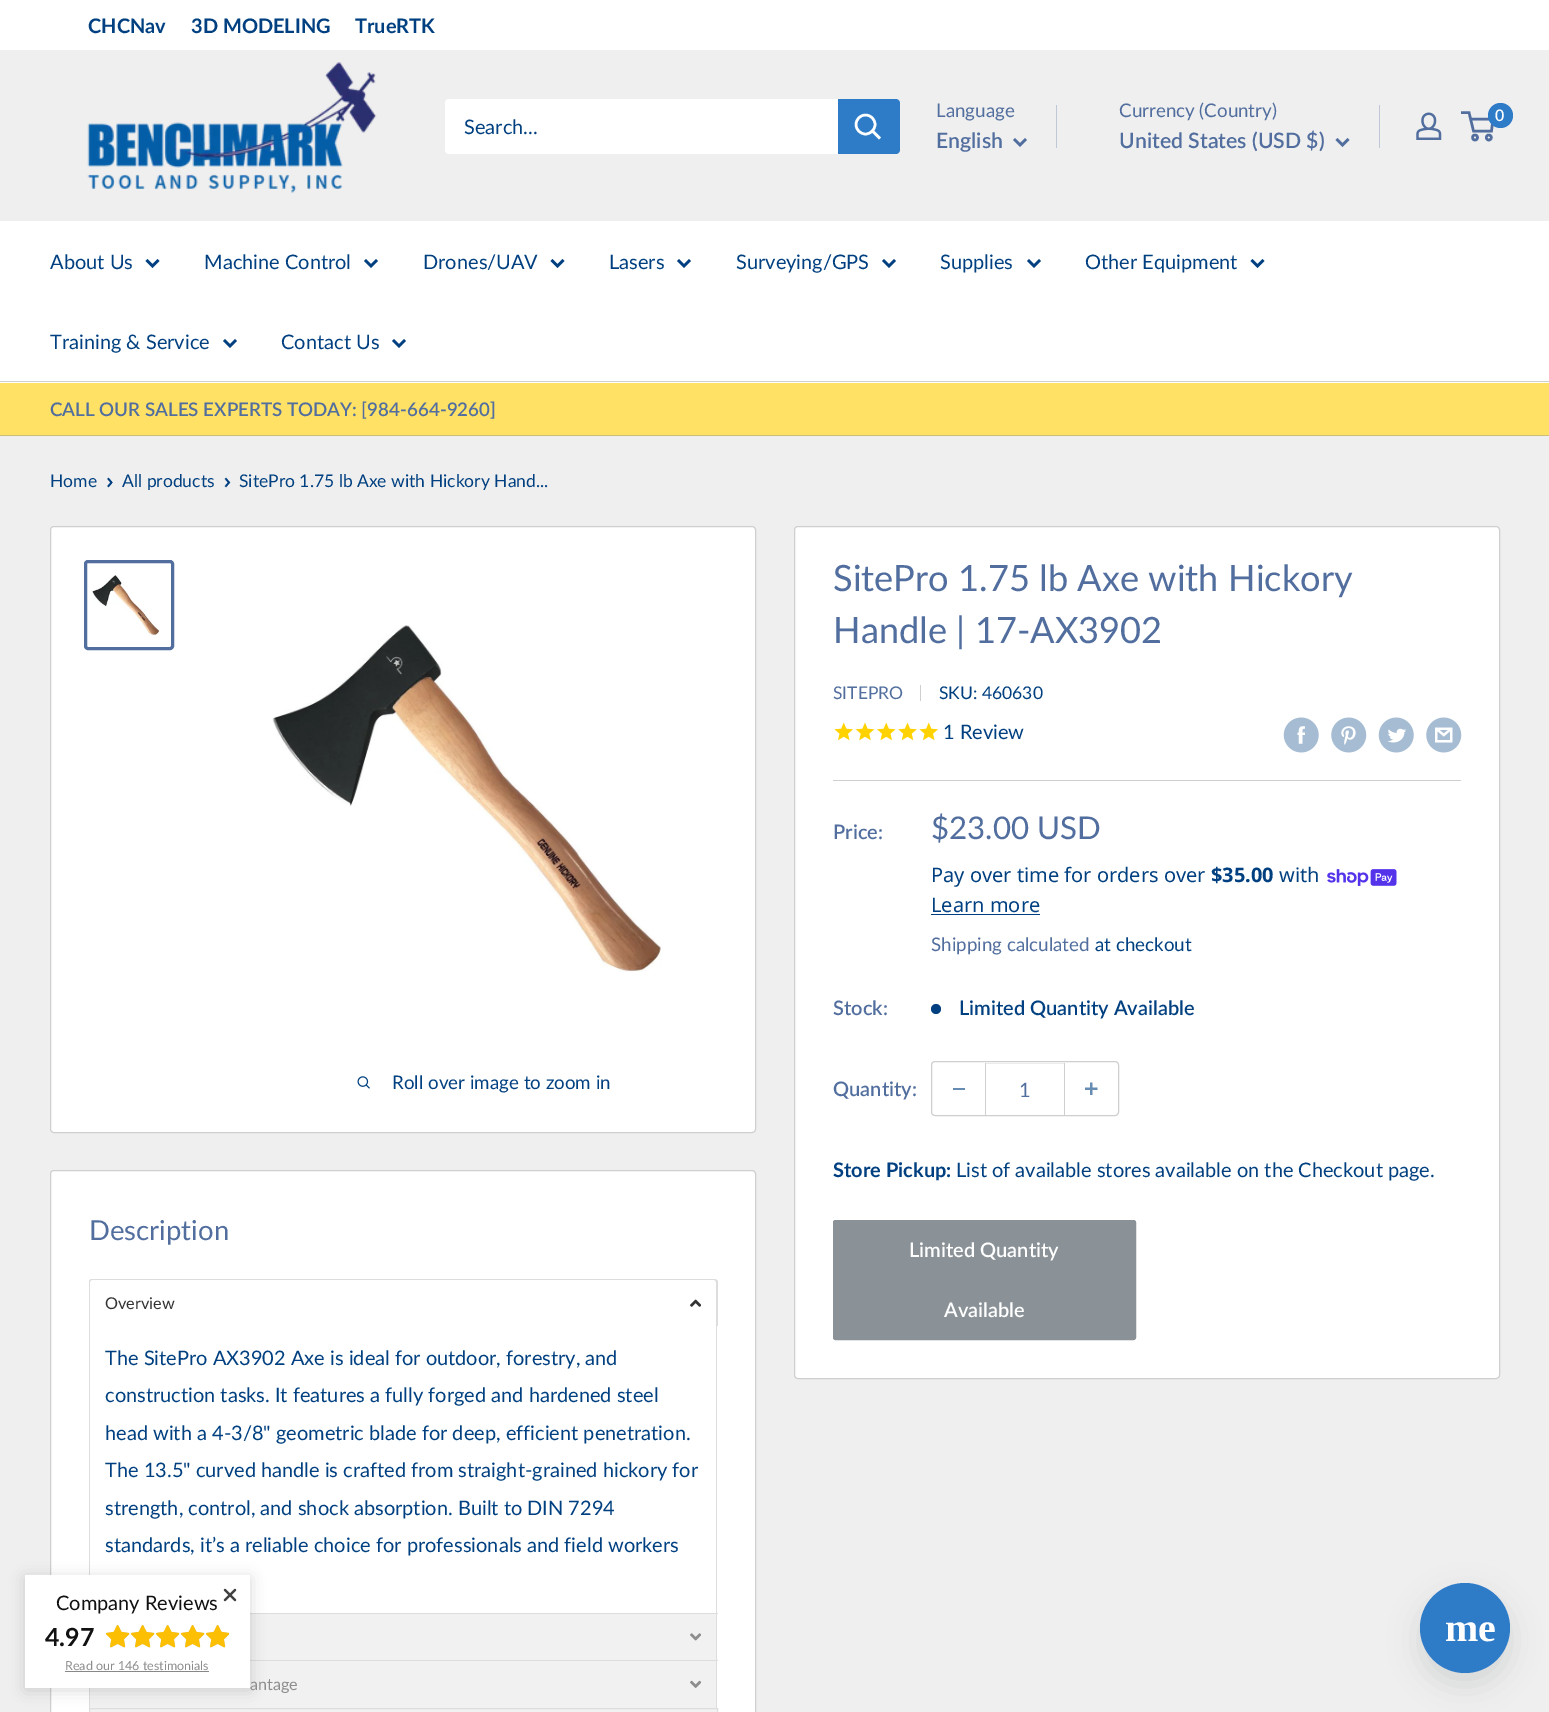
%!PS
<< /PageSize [1549 1712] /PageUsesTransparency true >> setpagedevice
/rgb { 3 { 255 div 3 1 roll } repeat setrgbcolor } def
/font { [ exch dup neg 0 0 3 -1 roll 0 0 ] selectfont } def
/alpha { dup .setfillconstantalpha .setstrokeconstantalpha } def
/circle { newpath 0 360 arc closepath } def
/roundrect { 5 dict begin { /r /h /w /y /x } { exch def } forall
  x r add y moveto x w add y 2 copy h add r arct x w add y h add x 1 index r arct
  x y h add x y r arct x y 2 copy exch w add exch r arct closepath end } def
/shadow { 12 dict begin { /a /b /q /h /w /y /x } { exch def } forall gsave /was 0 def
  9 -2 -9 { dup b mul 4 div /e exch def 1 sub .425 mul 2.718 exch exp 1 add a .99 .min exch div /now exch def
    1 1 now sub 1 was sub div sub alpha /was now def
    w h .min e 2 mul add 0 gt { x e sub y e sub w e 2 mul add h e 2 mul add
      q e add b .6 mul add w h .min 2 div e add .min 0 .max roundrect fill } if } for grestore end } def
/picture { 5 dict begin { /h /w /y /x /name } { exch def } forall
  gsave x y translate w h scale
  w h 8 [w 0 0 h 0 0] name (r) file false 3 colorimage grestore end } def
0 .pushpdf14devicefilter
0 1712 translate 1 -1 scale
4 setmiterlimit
239 239 239 rgb
0 0 1549 1712 rectfill
255 255 255 rgb
0 0 1549 50 rectfill
(img/1.rgb) 87 62 290 131 picture
445 99 455 55 4 roundrect fill
46 123 200 rgb
838 99 moveto 896 99 lineto 898 99 900 101 900 103 curveto 900 150 lineto 900 152 898 154 896 154 curveto 838 154 lineto closepath fill
255 255 255 rgb
2.5 setlinewidth
2 setlinecap
879 137.5 moveto 872.5 131 lineto stroke
0 setlinecap
865.5 124.5 9.5 circle stroke
81 110 158 rgb
2 setlinecap
1025 140 moveto 1020 145 lineto 1015 140 lineto stroke
192 200 215 rgb
1056 105 1 43 rectfill
81 110 158 rgb
1347.5 140 moveto 1342.5 145 lineto 1337.5 140 lineto stroke
192 200 215 rgb
1379 105 1 43 rectfill
(img/2.rgb) 1416 112 26 28 picture
81 110 158 rgb
0 setlinecap
1475 137.5 2.5 circle stroke
1488.8 137.5 2.5 circle stroke
1470.5 119 moveto 1493 119 lineto 1491.5 131 lineto 1473.5 131 lineto 1469 112.5 lineto 1461 112.5 lineto stroke
46 123 200 rgb
1500.5 115.5 12.5 circle fill
255 255 255 rgb
0 221 1549 162 rectfill
207 207 207 rgb
0 381 1549 1 rectfill
0 64 128 rgb
2 setlinecap
157.5 261 moveto 152.5 266 lineto 147.5 261 lineto stroke
376 261 moveto 371 266 lineto 366 261 lineto stroke
562.5 261 moveto 557.5 266 lineto 552.5 261 lineto stroke
689 261 moveto 684 266 lineto 679 261 lineto stroke
894 261 moveto 889 266 lineto 884 261 lineto stroke
1039 261 moveto 1034 266 lineto 1029 261 lineto stroke
1262.5 261 moveto 1257.5 266 lineto 1252.5 261 lineto stroke
235 341 moveto 230 346 lineto 225 341 lineto stroke
404 341 moveto 399 346 lineto 394 341 lineto stroke
255 255 255 rgb
50.5 1170.5 705 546 3.5 roundrect gsave fill grestore
207 207 207 rgb
1 setlinewidth
0 setlinecap
stroke
[
  [89 1325 1 250 221 221 221]
  [250 1614 466 46 241 241 241]
  [250 1613 468 1 221 221 221]
  [90 1661 626 47 241 241 241]
  [250 1660 468 1 221 221 221]
  [89 1688 1 20 221 221 221]
] { aload pop rgb rectfill } forall
241 241 241 rgb
89.5 1708.5 moveto 717.5 1708.5 lineto 717.5 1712.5 lineto 89.5 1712.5 lineto closepath gsave fill grestore
221 221 221 rgb
stroke
0 0 0 rgb
25 1578 225 112 0 7.5 0.15 shadow
255 255 255 rgb
25 1575 225 113 rectfill
(img/3.rgb) 223 1588 14 14 picture
(img/5.rgb) 106 1625 24 23 picture
(img/4.rgb) 105 1625 25 23 picture
(img/5.rgb) 131 1625 24 23 picture
(img/4.rgb) 130 1625 25 23 picture
(img/5.rgb) 156 1625 24 23 picture
(img/4.rgb) 155 1625 25 23 picture
(img/5.rgb) 181 1625 24 23 picture
(img/4.rgb) 180 1625 25 23 picture
(img/5.rgb) 206 1625 24 23 picture
(img/6.rgb) 205 1625 24 23 picture
[
  [65 1671 144 1 136 136 136]
  [0 383 1549 52 255 225 102]
  [0 435 1549 1 203 191 119]
] { aload pop rgb rectfill } forall
0 64 128 rgb
1.7 setlinewidth
2 setlinecap
108.5 479 moveto 111.5 482.5 lineto 108.5 486 lineto stroke
226 479 moveto 229 482.5 lineto 226 486 lineto stroke
255 255 255 rgb
50.5 526.5 705 606 3.5 roundrect gsave fill grestore
207 207 207 rgb
1 setlinewidth
0 setlinecap
stroke
81 110 158 rgb
3 setlinewidth
85.5 561.5 87 87 2.5 roundrect stroke
(img/7.rgb) 92 575 68 61 picture
(img/8.rgb) 272 625 390 347 picture
(img/9.rgb) 357 1076 13 13 picture
255 255 255 rgb
794.5 526.5 705 852 3.5 roundrect gsave fill grestore
207 207 207 rgb
1 setlinewidth
stroke
920 685 1 16 rectfill
(img/10.rgb) 834 722 19 19 picture
(img/11.rgb) 855 722 20 19 picture
(img/12.rgb) 877 722 19 19 picture
(img/13.rgb) 898 722 19 19 picture
(img/10.rgb) 919 722 19 19 picture
(img/14.rgb) 1283 717 36 36 picture
(img/15.rgb) 1331 717 36 36 picture
(img/16.rgb) 1378 717 36 36 picture
(img/17.rgb) 1426 717 36 36 picture
833 780 628 1 rectfill
(img/18.rgb) 1327 869 70 17 picture
0 64 128 rgb
931 914 109 1 rectfill
936 1009 5 circle fill
207 207 207 rgb
931.5 1061.5 187 54 3.5 roundrect stroke
[
  [953 1088 12 2 102 140 179]
  [986 1063 78 1 236 236 236]
  [1064 1063 1 52 207 207 207]
  [985 1063 1 52 207 207 207]
] { aload pop rgb rectfill } forall
(img/19.rgb) 1085 1082 13 13 picture
138 146 151 rgb
833.5 1220.5 302 119 2 roundrect gsave fill grestore
stroke
221 221 221 rgb
716 1325 1 288 rectfill
92 1279 moveto 714 1279 lineto 716 1279 718 1280 718 1282 curveto 718 1326 lineto 89 1326 lineto 89 1282 lineto 89 1280 90 1279 92 1279 curveto closepath 92 1280 moveto 714 1280 lineto 715 1280 716 1281 716 1282 curveto 716 1326 lineto 90 1326 lineto 90 1282 lineto 90 1281 91 1280 92 1280 curveto closepath eofill
(img/20.rgb) 690 1299 11 8 picture
716 1613 1 47 rectfill
(img/21.rgb) 690 1633 11 8 picture
716 1660 1 48 rectfill
(img/22.rgb) 690 1680 11 8 picture
54 61 77 rgb
1420 1595 90 90 45 15 0.15 shadow
46 123 200 rgb
1465 1628 45 circle fill
/Lato-Bold 20 font
0 64 128 rgb
[
  [(CHCNav) 88 33]
  [(3D MODELING) 191 33]
  [(TrueRTK) 355 33]
] { aload pop moveto show } forall
/Lato-Regular 20 font
464 134 moveto (Search...) show
/Lato-Regular 18.75 font
81 110 158 rgb
936 117 moveto (Language) show
/Lato-SemiBold 21.25 font
936 148 moveto (English) show
/Lato-Regular 18.75 font
1119 117 moveto (Currency \(Country\)) show
/Lato-SemiBold 21.25 font
1119 148 moveto (United States \(USD $\)) show
/Lato-SemiBold 16 font
255 255 255 rgb
1495 121 moveto (0) show
/Lato-Regular 20 font
0 64 128 rgb
[
  [(About Us) 50 269]
  [(Machine Control) 204 269]
  [(Drones/UAV) 423 269]
  [(Lasers) 609 269]
  [(Surveying/GPS) 736 269]
  [(Supplies) 940 269]
  [(Other Equipment) 1085 269]
  [(Training & Service) 50 349]
  [(Contact Us) 281 349]
] { aload pop moveto show } forall
17 17 17 rgb
56 1610 moveto (Company Reviews) show
/Lato-Bold 25 font
45 1646 moveto (4.97) show
/Lato-Regular 12.5 font
141 141 141 rgb
65 1670 moveto (Read our 146 testimonials) show
/Lato-SemiBold 18.75 font
81 110 158 rgb
50 416 moveto (CALL OUR SALES EXPERTS TODAY: [984-664-9260]) show
/Lato-Regular 17.5 font
0 64 128 rgb
[
  [(Home) 50 487]
  [(All products) 122 487]
  [(SitePro 1.75 lb Axe with Hickory Hand...) 239 487]
] { aload pop moveto show } forall
/Lato-Regular 18.75 font
392 1089 moveto (Roll over image to zoom in) show
/Lato-Regular 36.25 font
81 110 158 rgb
833 591 moveto (SitePro 1.75 lb Axe with Hickory) show
833 643 moveto (Handle | 17-AX3902) show
/Lato-Regular 17.5 font
833 699 moveto (SITEPRO) show
0 64 128 rgb
939 699 moveto (SKU: 460630) show
/Lato-Regular 20 font
943 739 moveto (1 Review) show
/Lato-SemiBold 20 font
81 110 158 rgb
833 839 moveto (Price:) show
/Lato-Regular 31.25 font
931 839 moveto ($23.00 USD) show
/NotoSans-Regular 20 font
0 64 128 rgb
931 882 moveto (Pay over time for orders over) show
/NotoSans-Bold 20 font
1211 882 moveto ($35.00) show
/NotoSans-Regular 20 font
1279 882 moveto (with) show
931 912 moveto (Learn more) show
/Lato-Regular 18.75 font
81 110 158 rgb
931 951 moveto (Shipping calculated) show
0 64 128 rgb
1095 951 moveto (at checkout) show
/Lato-SemiBold 20 font
81 110 158 rgb
833 1015 moveto (Stock:) show
0 64 128 rgb
959 1015 moveto (Limited Quantity Available) show
81 110 158 rgb
833 1096 moveto (Quantity:) show
/Lato-Regular 20 font
1019 1097 moveto (1) show
/Lato-Bold 20 font
0 64 128 rgb
833 1177 moveto (Store Pickup:) show
/Lato-Regular 20 font
956 1177 moveto (List of available stores available on the Checkout page.) show
/Lato-SemiBold 20 font
255 255 255 rgb
909 1257 moveto (Limited Quantity) show
944 1317 moveto (Available) show
/Lato-Regular 27.5 font
81 110 158 rgb
89 1240 moveto (Description) show
/Lato-Regular 16.25 font
51 51 51 rgb
105 1309 moveto (Overview) show
/Lato-Regular 20 font
0 64 128 rgb
[
  [(The SitePro AX3902 Axe is ideal for outdoor, forestry, and) 105 1365]
  [(construction tasks. It features a fully forged and hardened steel) 105 1402]
  [(head with a 4-3/8" geometric blade for deep, efficient penetration.) 105 1440]
  [(The 13.5" curved handle is crafted from straight-grained hickory for) 105 1477]
  [(strength, control, and shock absorption. Built to DIN 7294) 105 1515]
  [(standards, it’s a reliable choice for professionals and field workers) 105 1552]
] { aload pop moveto show } forall
/Lato-Regular 16.25 font
141 141 141 rgb
250 1690 moveto (antage) show
/LiberationSerif-Bold 40 font
255 255 255 rgb
1445 1641 moveto (me) show
.poppdf14devicefilter showpage
